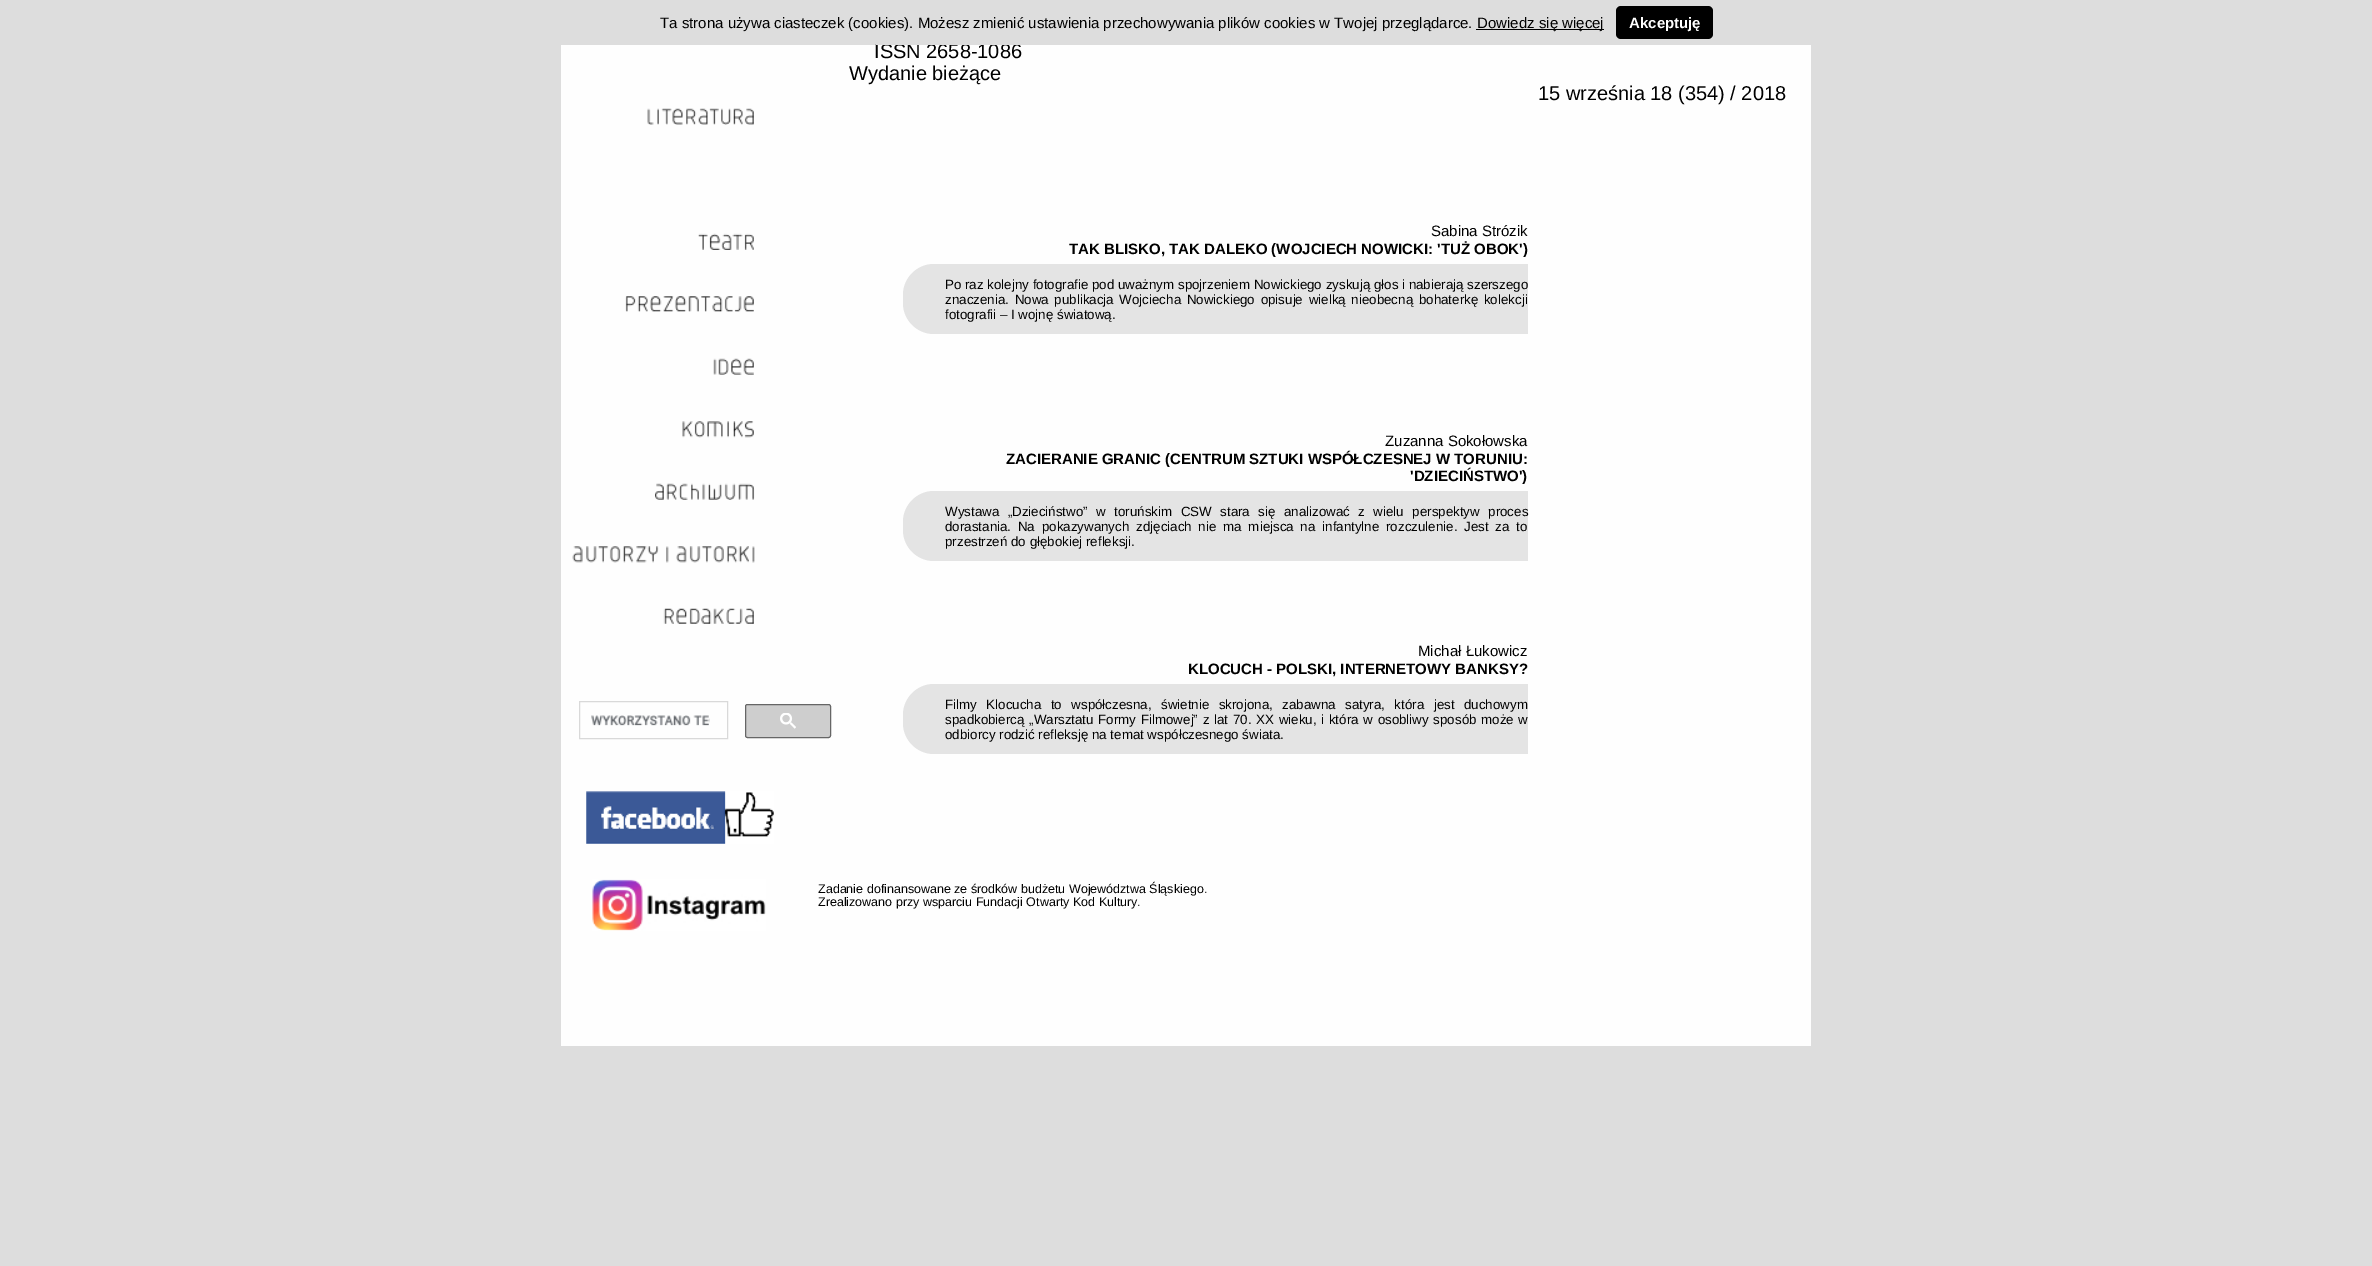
%!PS
<< /PageSize [2372 1266] >> setpagedevice
/rgb { 3 { 255 div 3 1 roll } repeat setrgbcolor } def
/font { [ exch dup neg 0 0 3 -1 roll 0 0 ] selectfont } def
/roundrect { 5 dict begin { /r /h /w /y /x } { exch def } forall
  x r add y moveto x w add y 2 copy h add r arct x w add y h add x 1 index r arct
  x y h add x y r arct x y 2 copy exch w add exch r arct closepath end } def
/picture { 5 dict begin { /h /w /y /x /name } { exch def } forall
  gsave x y translate w h scale
  w h 8 [w 0 0 h 0 0] name (r) file false 3 colorimage grestore end } def
0 1266 translate 1 -1 scale
4 setmiterlimit
221 221 221 rgb
0 0 2372 1266 rectfill
0 0 0 rgb
1476 29 128 1 rectfill
1616 6 97 33 5 roundrect fill
254 254 254 rgb
561 45 1250 1001 rectfill
(img/1.rgb) 647 108 107 17 picture
(img/2.rgb) 698 233 56 17 picture
(img/3.rgb) 625 296 129 16 picture
(img/4.rgb) 713 358 41 17 picture
(img/5.rgb) 682 421 72 17 picture
(img/6.rgb) 655 483 100 17 picture
(img/7.rgb) 572 546 183 17 picture
(img/8.rgb) 663 608 91 16 picture
217 217 217 rgb
579.5 701.5 148 37 rectstroke
(img/9.rgb) 591 715 119 11 picture
206 206 206 rgb
745.5 704.5 85 33 2 roundrect gsave fill grestore
102 102 102 rgb
stroke
(img/10.rgb) 780 713 16 16 picture
(img/11.rgb) 586 791 188 53 picture
(img/12.rgb) 592 879 174 52 picture
228 228 228 rgb
934 264 moveto 1528 264 lineto 1528 334 lineto 934 334 lineto 917 334 903 320 903 303 curveto 903 295 lineto 903 278 917 264 934 264 curveto closepath fill
934 491 moveto 1528 491 lineto 1528 561 lineto 934 561 lineto 917 561 903 547 903 530 curveto 903 522 lineto 903 505 917 491 934 491 curveto closepath fill
934 684 moveto 1528 684 lineto 1528 754 lineto 934 754 lineto 917 754 903 740 903 723 curveto 903 715 lineto 903 698 917 684 934 684 curveto closepath fill
/LiberationSans-Regular 15 font
0 0 0 rgb
660 28 moveto (Ta strona używa ciasteczek \(cookies\). Możesz zmienić ustawienia przechowywania plików cookies w Twojej przeglądarce.) show
1477 28 moveto (Dowiedz się więcej) show
/LiberationSans-Bold 15 font
255 255 255 rgb
1629 28 moveto (Akceptuję) show
/LiberationSans-Regular 20 font
0 0 0 rgb
874 58 moveto (ISSN 2658-1086) show
221 221 221 rgb
876 44 144 1 rectfill
0 0 0 rgb
849 80 moveto (Wydanie bieżące) show
1538 100 moveto (15 września 18 \(354\) / 2018) show
/LiberationSans-Regular 15 font
1431 236 moveto (Sabina Strózik) show
/LiberationSans-Bold 15 font
1069 254 moveto (TAK BLISKO, TAK DALEKO \(WOJCIECH NOWICKI: 'TUŻ OBOK'\)) show
/LiberationSans-Regular 13.35 font
945 289 moveto (Po raz kolejny fotografie pod uważnym spojrzeniem Nowickiego zyskują głos i nabierają szerszego) show
945 304 moveto 2 0 32 (znaczenia. Nowa publikacja Wojciecha Nowickiego opisuje wielką nieobecną bohaterkę kolekcji) widthshow
945 319 moveto (fotografii – I wojnę światową.) show
/LiberationSans-Regular 15 font
1385 446 moveto (Zuzanna Sokołowska) show
/LiberationSans-Bold 15 font
1006 464 moveto (ZACIERANIE GRANIC \(CENTRUM SZTUKI WSPÓŁCZESNEJ W TORUNIU:) show
1410 481 moveto ('DZIECIŃSTWO'\)) show
/LiberationSans-Regular 13.35 font
945 516 moveto 4.75 0 32 (Wystawa „Dzieciństwo” w toruńskim CSW stara się analizować z wielu perspektyw proces) widthshow
945 531 moveto 3.1 0 32 (dorastania. Na pokazywanych zdjęciach nie ma miejsca na infantylne rozczulenie. Jest za to) widthshow
945 546 moveto (przestrzeń do głębokiej refleksji.) show
/LiberationSans-Regular 15 font
1418 656 moveto (Michał Łukowicz) show
/LiberationSans-Bold 15 font
1188 674 moveto (KLOCUCH - POLSKI, INTERNETOWY BANKSY?) show
/LiberationSans-Regular 13.35 font
945 709 moveto 5.75 0 32 (Filmy Klocucha to współczesna, świetnie skrojona, zabawna satyra, która jest duchowym) widthshow
945 724 moveto 1 0 32 (spadkobiercą „Warsztatu Formy Filmowej” z lat 70. XX wieku, i która w osobliwy sposób może w) widthshow
945 739 moveto (odbiorcy rodzić refleksję na temat współczesnego świata.) show
/LiberationSans-Regular 12.5 font
818 893 moveto (Zadanie dofinansowane ze środków budżetu Województwa Śląskiego.) show
818 906 moveto (Zrealizowano przy wsparciu Fundacji Otwarty Kod Kultury.) show
showpage
